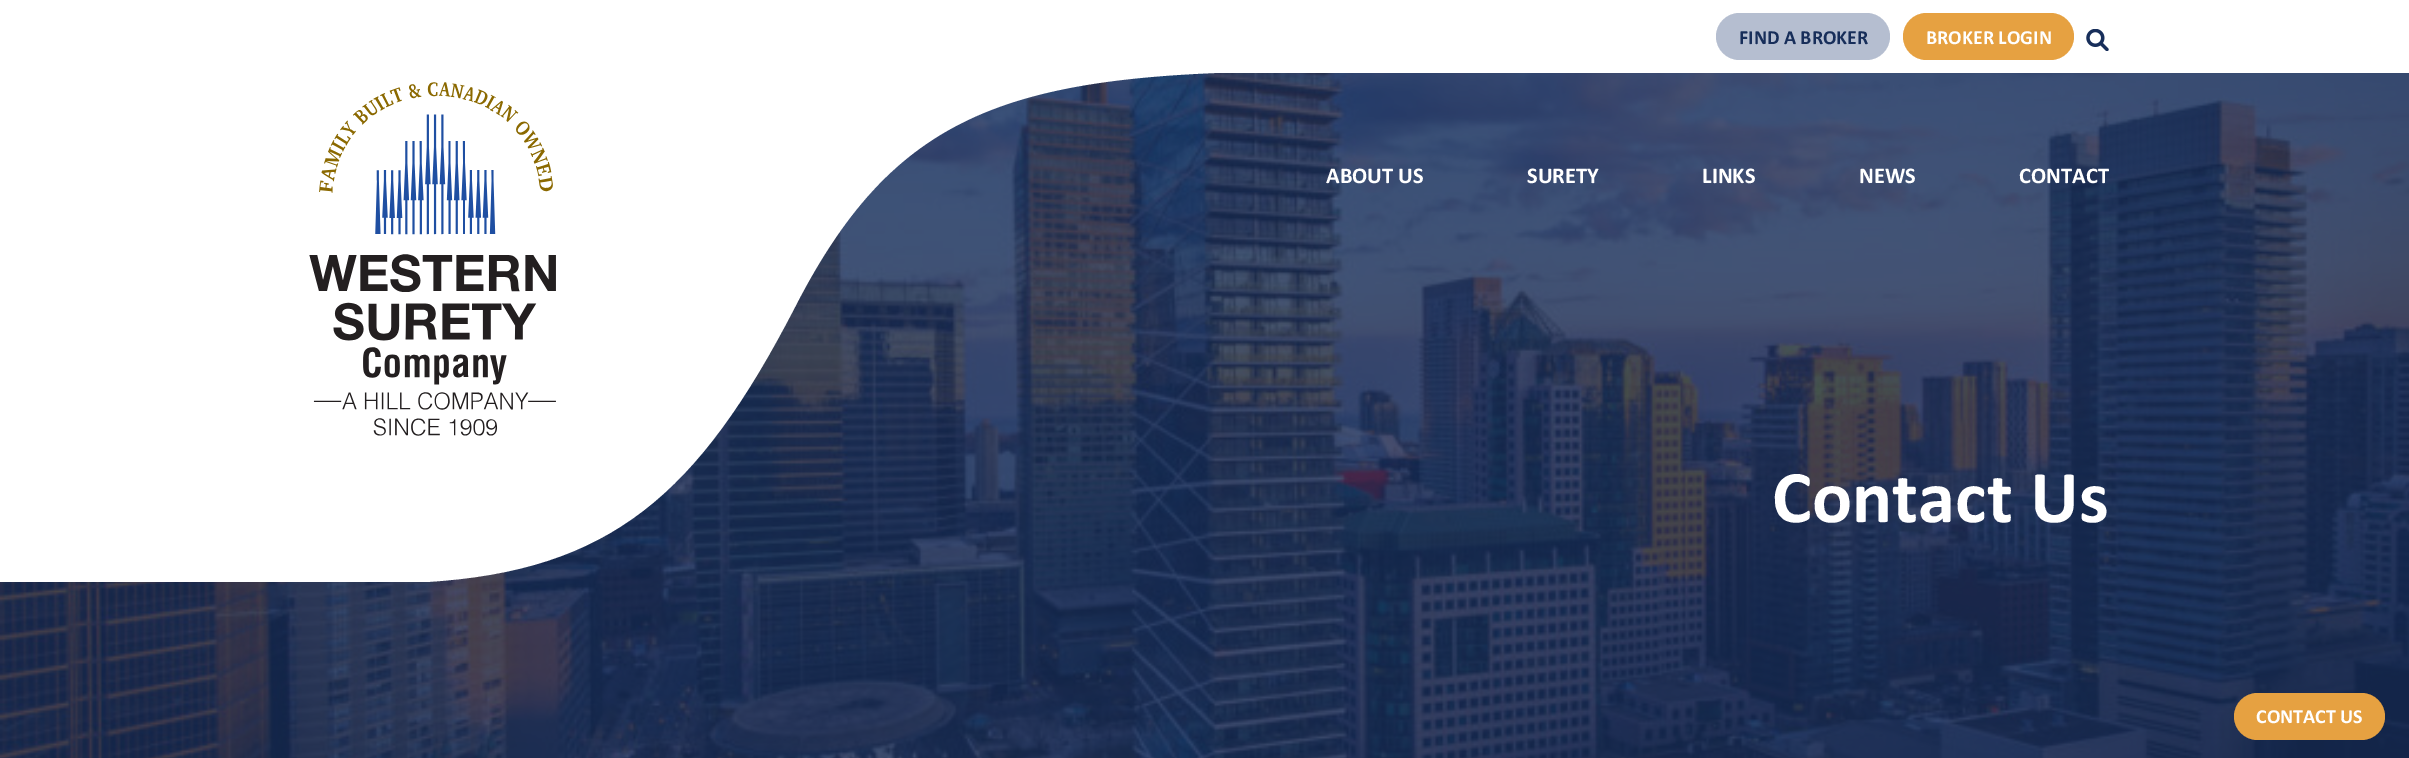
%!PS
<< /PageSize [2409 758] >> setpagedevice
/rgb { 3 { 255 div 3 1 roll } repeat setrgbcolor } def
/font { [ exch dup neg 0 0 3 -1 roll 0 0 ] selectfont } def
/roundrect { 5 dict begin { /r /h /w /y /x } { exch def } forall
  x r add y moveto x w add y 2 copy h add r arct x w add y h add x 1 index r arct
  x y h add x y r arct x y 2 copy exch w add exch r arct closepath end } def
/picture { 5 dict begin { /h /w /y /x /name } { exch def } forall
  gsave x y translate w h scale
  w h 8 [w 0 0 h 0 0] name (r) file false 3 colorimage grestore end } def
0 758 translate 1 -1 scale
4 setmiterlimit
255 255 255 rgb
0 0 2409 758 rectfill
(img/1.rgb) 0 73 2409 685 picture
795 307 moveto 899 104 1018 71 1325 71 curveto 0 71 lineto 0 582 lineto 426 582 lineto 610 571 698 495 795 307 curveto closepath fill
(img/2.rgb) 309 82 247 354 picture
181 190 208 rgb
1716 13 174 47 23.5 roundrect fill
230 161 65 rgb
1903 13 171 47 23.5 roundrect fill
(img/3.rgb) 2086 29 23 22 picture
2234 693 151 47 23.5 roundrect fill
/Calibri-Bold 20 font
23 46 90 rgb
1739 44 moveto (FIND A BROKER) show
255 255 255 rgb
1926 44 moveto (BROKER LOGIN) show
/Calibri-Bold 22.5 font
[
  [(ABOUT US) 1326 183]
  [(SURETY) 1527 183]
  [(LINKS) 1702 183]
  [(NEWS) 1859 183]
  [(CONTACT) 2019 183]
] { aload pop moveto show } forall
/Calibri-Bold 75 font
1772 522 moveto (Contact Us) show
/Calibri-Bold 20 font
2256 723 moveto (CONTACT US) show
showpage
